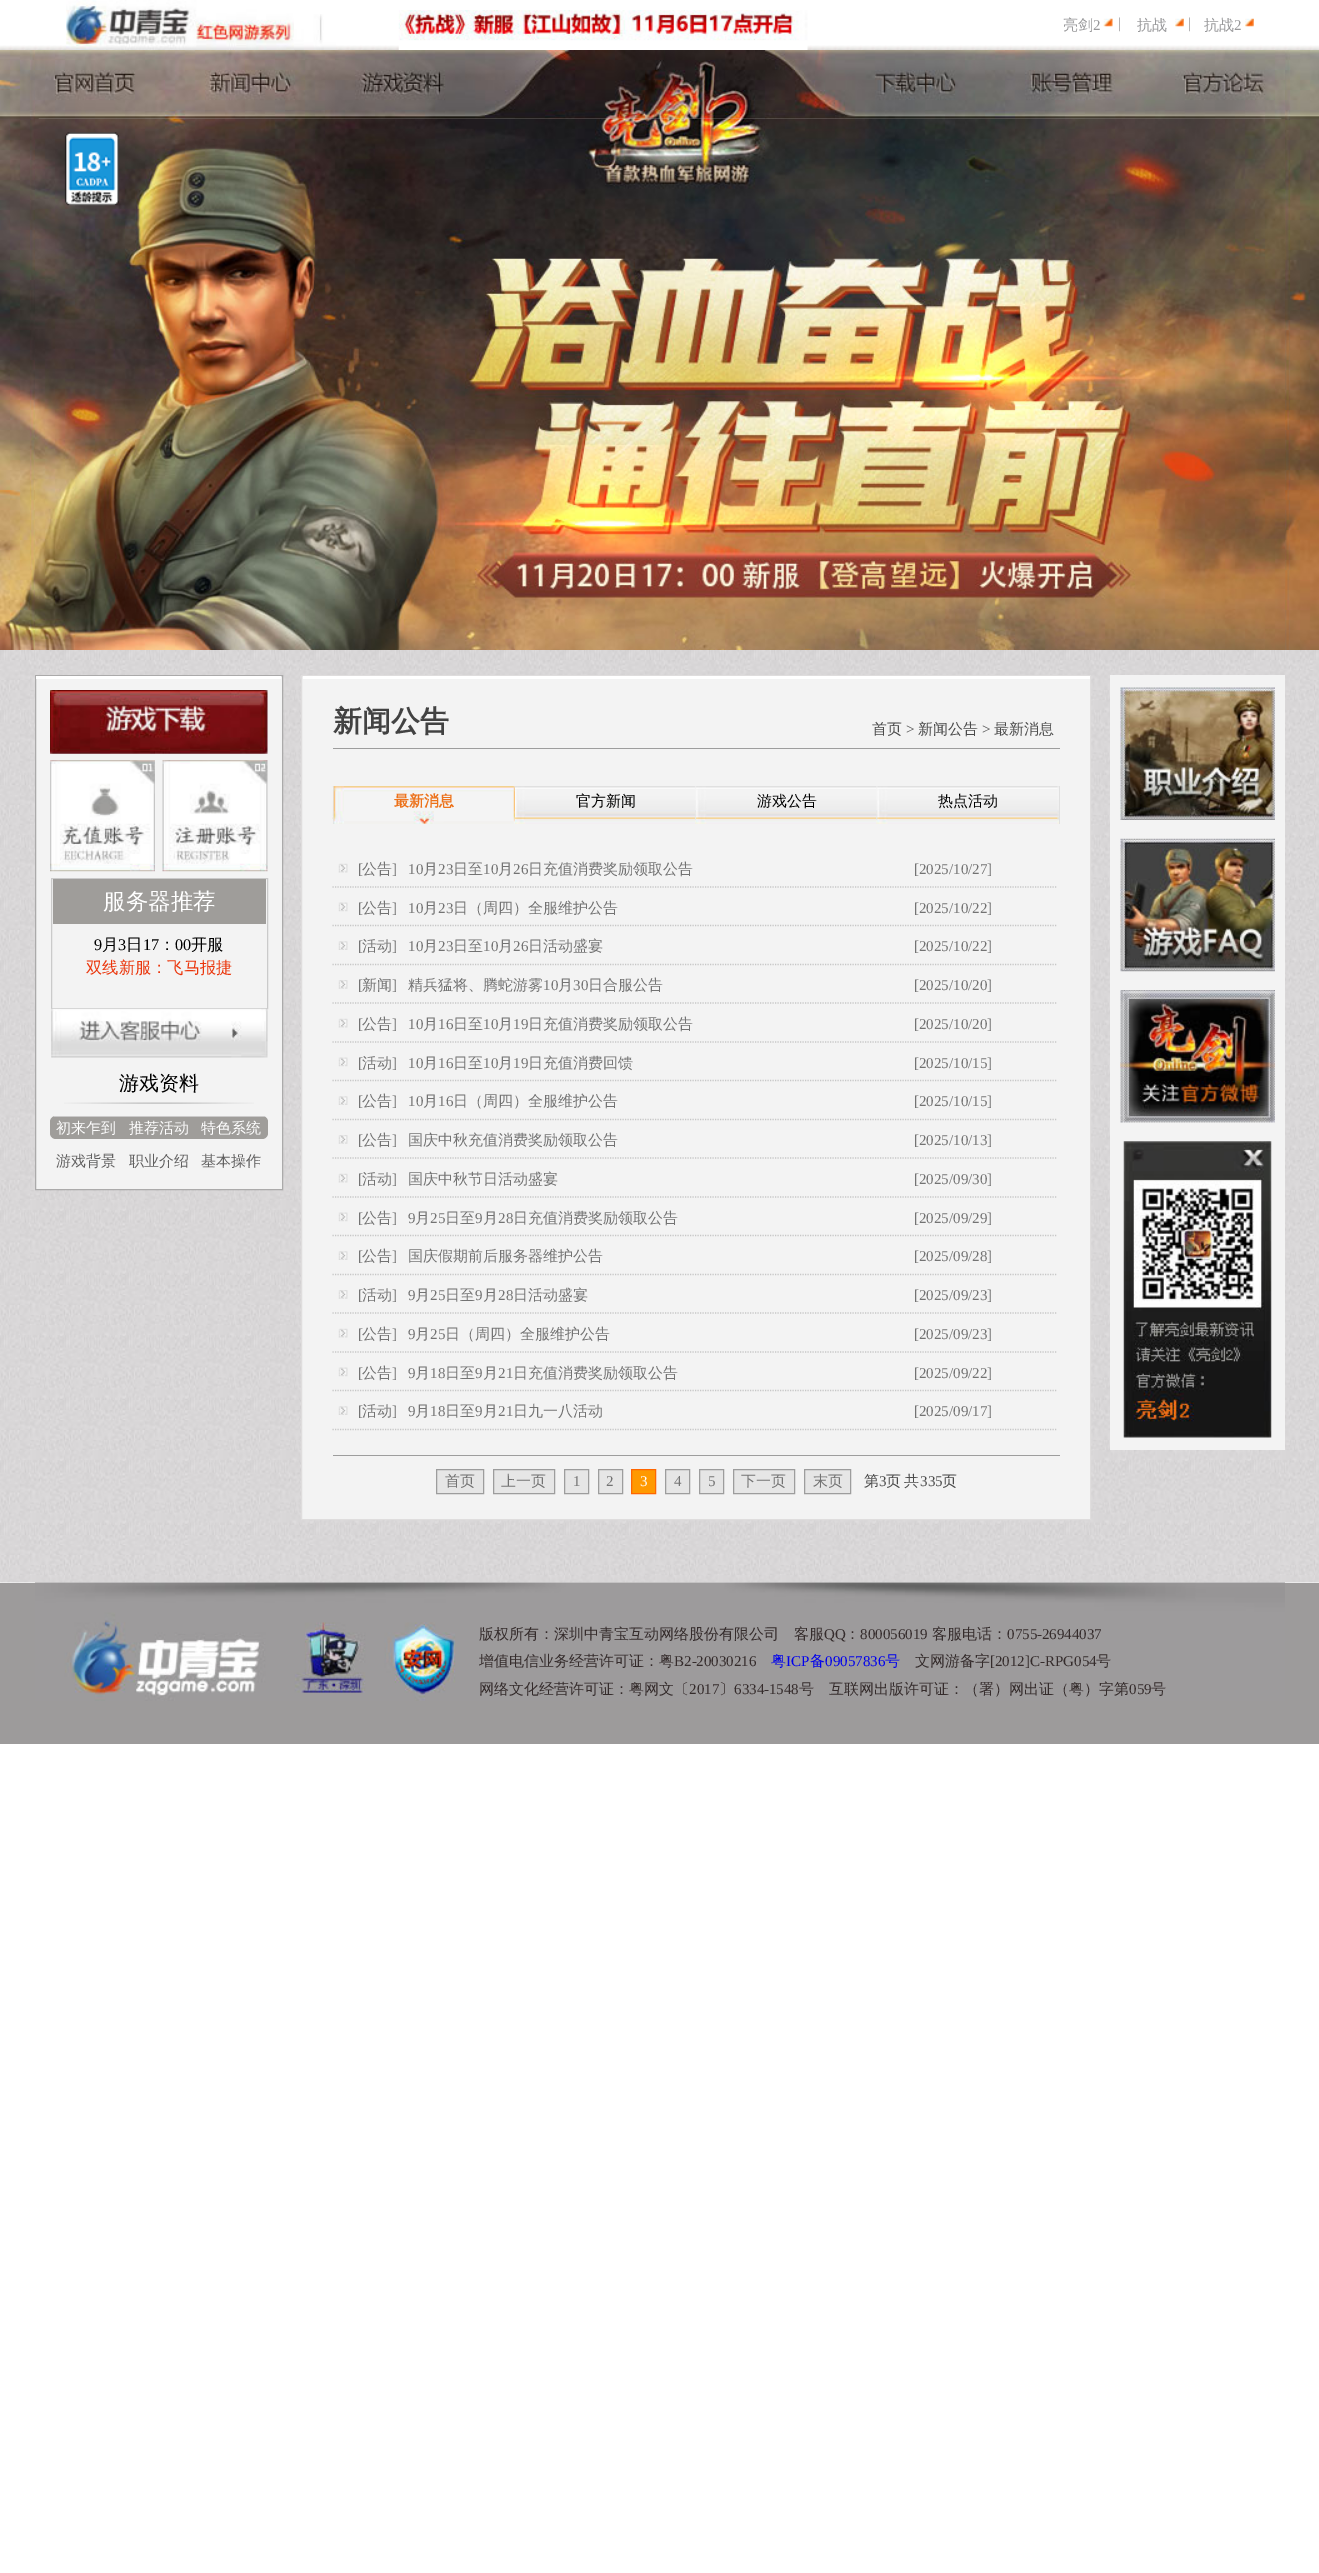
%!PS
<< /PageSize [1319 2573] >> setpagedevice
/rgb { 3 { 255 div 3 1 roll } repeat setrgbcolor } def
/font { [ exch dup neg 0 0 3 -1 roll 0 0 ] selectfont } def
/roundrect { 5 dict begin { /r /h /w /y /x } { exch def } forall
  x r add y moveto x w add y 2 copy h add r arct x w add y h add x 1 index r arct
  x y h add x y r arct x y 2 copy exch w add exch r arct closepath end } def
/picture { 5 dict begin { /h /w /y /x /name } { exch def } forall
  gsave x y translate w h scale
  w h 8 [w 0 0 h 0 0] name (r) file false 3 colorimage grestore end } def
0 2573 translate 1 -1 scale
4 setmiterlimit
255 255 255 rgb
0 0 1319 2573 rectfill
(img/1.rgb) 0 45 1319 5 picture
(img/2.rgb) 66 0 228 50 picture
(img/3.rgb) 294 14 42 36 picture
(img/4.rgb) 398 10 410 40 picture
(img/5.rgb) 1103 18 10 9 picture
(img/6.rgb) 1175 18 9 9 picture
(img/7.rgb) 1245 18 9 9 picture
(img/8.rgb) 0 50 1319 600 picture
(img/9.rgb) 35 50 1250 69 picture
(img/10.rgb) 35 118 1250 532 picture
(img/11.rgb) 64 132 55 74 picture
(img/12.rgb) 0 650 1319 933 picture
243 243 243 rgb
35.5 675.5 moveto 282.5 675.5 lineto 282.5 1189.5 lineto 35.5 1189.5 lineto closepath gsave fill grestore
171 170 170 rgb
stroke
255 255 255 rgb
36 676 245 3 rectfill
(img/13.rgb) 50 690 218 64 picture
(img/14.rgb) 50 760 105 112 picture
(img/15.rgb) 162 760 106 112 picture
202 202 202 rgb
51.5 878.5 216 130 rectstroke
159 157 154 rgb
53 879 213 45 rectfill
(img/16.rgb) 51 1008 217 50 picture
(img/17.rgb) 64 1102 190 2 picture
50 1116 218 23 6 roundrect fill
203 202 202 rgb
54 1116 211 1 rectfill
243 243 243 rgb
301.5 675.5 moveto 1090.5 675.5 lineto 1090.5 1519.5 lineto 301.5 1519.5 lineto closepath gsave fill grestore
223 221 221 rgb
stroke
[
  [303 676 787 3 255 255 255]
  [333 748 727 1 157 157 157]
  [333 1455 727 1 157 157 157]
] { aload pop rgb rectfill } forall
(img/18.rgb) 332 786 727 38 picture
224 224 224 rgb
1059 786 1 38 rectfill
333 786 1 38 rectfill
(img/19.rgb) 333 786 182 38 picture
(img/20.rgb) 515 786 182 38 picture
(img/21.rgb) 696 786 182 38 picture
(img/22.rgb) 877 786 182 38 picture
(img/23.rgb) 338 863 10 10 picture
199 199 199 rgb
1.2 setlinewidth
[1.25 1.25] 0 setdash
332.5 887 moveto 1057.5 887 lineto stroke
(img/24.rgb) 338 902 10 10 picture
332.5 925.5 moveto 1057.5 925.5 lineto stroke
(img/25.rgb) 338 941 10 9 picture
332.5 964.5 moveto 1057.5 964.5 lineto stroke
(img/26.rgb) 338 980 10 9 picture
332.5 1003 moveto 1057.5 1003 lineto stroke
(img/23.rgb) 338 1018 10 10 picture
332.5 1042 moveto 1057.5 1042 lineto stroke
(img/24.rgb) 338 1057 10 10 picture
332.5 1080.5 moveto 1057.5 1080.5 lineto stroke
(img/25.rgb) 338 1096 10 9 picture
332.5 1119.5 moveto 1057.5 1119.5 lineto stroke
(img/26.rgb) 338 1135 10 9 picture
332.5 1158 moveto 1057.5 1158 lineto stroke
(img/27.rgb) 338 1173 10 10 picture
332.5 1197 moveto 1057.5 1197 lineto stroke
(img/24.rgb) 338 1212 10 10 picture
332.5 1235.5 moveto 1057.5 1235.5 lineto stroke
(img/25.rgb) 338 1251 10 9 picture
332.5 1274.5 moveto 1057.5 1274.5 lineto stroke
(img/26.rgb) 338 1290 10 9 picture
332.5 1313 moveto 1057.5 1313 lineto stroke
(img/23.rgb) 338 1328 10 10 picture
332.5 1352 moveto 1057.5 1352 lineto stroke
(img/24.rgb) 338 1367 10 10 picture
332.5 1390.5 moveto 1057.5 1390.5 lineto stroke
(img/25.rgb) 338 1406 10 9 picture
332.5 1429.5 moveto 1057.5 1429.5 lineto stroke
230 230 230 rgb
436.5 1469.5 moveto 483.5 1469.5 lineto 483.5 1493.5 lineto 436.5 1493.5 lineto closepath gsave fill grestore
157 157 157 rgb
1 setlinewidth
[] 0 setdash
stroke
230 230 230 rgb
493.5 1469.5 moveto 554.5 1469.5 lineto 554.5 1493.5 lineto 493.5 1493.5 lineto closepath gsave fill grestore
157 157 157 rgb
stroke
230 230 230 rgb
564.5 1469.5 moveto 588.5 1469.5 lineto 588.5 1493.5 lineto 564.5 1493.5 lineto closepath gsave fill grestore
157 157 157 rgb
stroke
230 230 230 rgb
598.5 1469.5 moveto 622.5 1469.5 lineto 622.5 1493.5 lineto 598.5 1493.5 lineto closepath gsave fill grestore
157 157 157 rgb
stroke
255 153 0 rgb
631.5 1469.5 moveto 655.5 1469.5 lineto 655.5 1493.5 lineto 631.5 1493.5 lineto closepath gsave fill grestore
255 102 0 rgb
stroke
230 230 230 rgb
665.5 1469.5 moveto 689.5 1469.5 lineto 689.5 1493.5 lineto 665.5 1493.5 lineto closepath gsave fill grestore
157 157 157 rgb
stroke
230 230 230 rgb
699.5 1469.5 moveto 723.5 1469.5 lineto 723.5 1493.5 lineto 699.5 1493.5 lineto closepath gsave fill grestore
157 157 157 rgb
stroke
230 230 230 rgb
733.5 1469.5 moveto 794.5 1469.5 lineto 794.5 1493.5 lineto 733.5 1493.5 lineto closepath gsave fill grestore
157 157 157 rgb
stroke
230 230 230 rgb
804.5 1469.5 moveto 850.5 1469.5 lineto 850.5 1493.5 lineto 804.5 1493.5 lineto closepath gsave fill grestore
157 157 157 rgb
stroke
243 243 243 rgb
1110 675 175 775 rectfill
(img/28.rgb) 1120 687 155 133 picture
(img/29.rgb) 1120 838 155 134 picture
(img/30.rgb) 1120 990 155 133 picture
(img/31.rgb) 1123 1141 149 297 picture
157 155 155 rgb
0 1583 1319 161 rectfill
(img/32.rgb) 35 1582 1250 119 picture
/WenQuanYiZenHei-Medium 15 font
153 153 155 rgb
1063 30 moveto (亮剑) show
/LiberationSerif-Regular 15 font
1093 30 moveto (2) show
1118 28 moveto (|) show
/WenQuanYiZenHei-Medium 15 font
1137 30 moveto (抗战) show
/LiberationSerif-Regular 15 font
1188 28 moveto (|) show
/WenQuanYiZenHei-Medium 15 font
1204 30 moveto (抗战) show
/LiberationSerif-Regular 15 font
1234 30 moveto (2) show
/WenQuanYiZenHei-Medium 22.5 font
255 255 255 rgb
103 909 moveto (服务器推荐) show
/LiberationSerif-Regular 16.25 font
0 0 0 rgb
94 950 moveto (9) show
/WenQuanYiZenHei-Medium 16.25 font
102 950 moveto (月) show
/LiberationSerif-Regular 16.25 font
118 950 moveto (3) show
/WenQuanYiZenHei-Medium 16.25 font
126 950 moveto (日) show
/LiberationSerif-Regular 16.25 font
143 950 moveto (17) show
/WenQuanYiZenHei-Medium 16.25 font
159 950 moveto (：) show
/LiberationSerif-Regular 16.25 font
175 950 moveto (00) show
/WenQuanYiZenHei-Medium 16.25 font
191 950 moveto (开服) show
235 54 12 rgb
86 973 moveto (双线新服：飞马报捷) show
/WenQuanYiZenHei-Medium 20 font
0 0 0 rgb
119 1090 moveto (游戏资料) show
/WenQuanYiZenHei-Medium 15 font
255 255 255 rgb
[
  [(初来乍到) 56 1133]
  [(推荐活动) 129 1133]
  [(特色系统) 201 1133]
] { aload pop moveto show } forall
97 96 96 rgb
[
  [(游戏背景) 56 1166]
  [(职业介绍) 129 1166]
  [(基本操作) 201 1166]
] { aload pop moveto show } forall
/WenQuanYiZenHei-Bold 29 font
66 66 66 rgb
333 731 moveto (新闻公告) show
/WenQuanYiZenHei-Medium 15 font
75 75 75 rgb
872 734 moveto (首页) show
/LiberationSerif-Regular 15 font
906 734 moveto (>) show
/WenQuanYiZenHei-Medium 15 font
918 734 moveto (新闻公告) show
/LiberationSerif-Regular 15 font
982 734 moveto (>) show
/WenQuanYiZenHei-Medium 15 font
994 734 moveto (最新消息) show
/WenQuanYiZenHei-Bold 15 font
237 114 26 rgb
394 806 moveto (最新消息) show
/WenQuanYiZenHei-Medium 15 font
0 0 0 rgb
[
  [(官方新闻) 576 806]
  [(游戏公告) 757 806]
  [(热点活动) 938 806]
] { aload pop moveto show } forall
/LiberationSerif-Regular 15 font
115 115 115 rgb
358 874 moveto ([) show
/WenQuanYiZenHei-Medium 15 font
362 874 moveto (公告) show
/LiberationSerif-Regular 15 font
392 874 moveto (]) show
408 874 moveto (10) show
/WenQuanYiZenHei-Medium 15 font
423 874 moveto (月) show
/LiberationSerif-Regular 15 font
438 874 moveto (23) show
/WenQuanYiZenHei-Medium 15 font
453 874 moveto (日至) show
/LiberationSerif-Regular 15 font
483 874 moveto (10) show
/WenQuanYiZenHei-Medium 15 font
498 874 moveto (月) show
/LiberationSerif-Regular 15 font
513 874 moveto (26) show
/WenQuanYiZenHei-Medium 15 font
528 874 moveto (日充值消费奖励领取公告) show
/LiberationSerif-Regular 15 font
914 874 moveto ([2025/10/27]) show
358 913 moveto ([) show
/WenQuanYiZenHei-Medium 15 font
362 913 moveto (公告) show
/LiberationSerif-Regular 15 font
392 913 moveto (]) show
408 913 moveto (10) show
/WenQuanYiZenHei-Medium 15 font
423 913 moveto (月) show
/LiberationSerif-Regular 15 font
438 913 moveto (23) show
/WenQuanYiZenHei-Medium 15 font
453 913 moveto (日（周四）全服维护公告) show
/LiberationSerif-Regular 15 font
914 913 moveto ([2025/10/22]) show
358 951 moveto ([) show
/WenQuanYiZenHei-Medium 15 font
362 951 moveto (活动) show
/LiberationSerif-Regular 15 font
392 951 moveto (]) show
408 951 moveto (10) show
/WenQuanYiZenHei-Medium 15 font
423 951 moveto (月) show
/LiberationSerif-Regular 15 font
438 951 moveto (23) show
/WenQuanYiZenHei-Medium 15 font
453 951 moveto (日至) show
/LiberationSerif-Regular 15 font
483 951 moveto (10) show
/WenQuanYiZenHei-Medium 15 font
498 951 moveto (月) show
/LiberationSerif-Regular 15 font
513 951 moveto (26) show
/WenQuanYiZenHei-Medium 15 font
528 951 moveto (日活动盛宴) show
/LiberationSerif-Regular 15 font
914 951 moveto ([2025/10/22]) show
358 990 moveto ([) show
/WenQuanYiZenHei-Medium 15 font
362 990 moveto (新闻) show
/LiberationSerif-Regular 15 font
392 990 moveto (]) show
/WenQuanYiZenHei-Medium 15 font
408 990 moveto (精兵猛将、腾蛇游雾) show
/LiberationSerif-Regular 15 font
543 990 moveto (10) show
/WenQuanYiZenHei-Medium 15 font
558 990 moveto (月) show
/LiberationSerif-Regular 15 font
573 990 moveto (30) show
/WenQuanYiZenHei-Medium 15 font
588 990 moveto (日合服公告) show
/LiberationSerif-Regular 15 font
914 990 moveto ([2025/10/20]) show
358 1029 moveto ([) show
/WenQuanYiZenHei-Medium 15 font
362 1029 moveto (公告) show
/LiberationSerif-Regular 15 font
392 1029 moveto (]) show
408 1029 moveto (10) show
/WenQuanYiZenHei-Medium 15 font
423 1029 moveto (月) show
/LiberationSerif-Regular 15 font
438 1029 moveto (16) show
/WenQuanYiZenHei-Medium 15 font
453 1029 moveto (日至) show
/LiberationSerif-Regular 15 font
483 1029 moveto (10) show
/WenQuanYiZenHei-Medium 15 font
498 1029 moveto (月) show
/LiberationSerif-Regular 15 font
513 1029 moveto (19) show
/WenQuanYiZenHei-Medium 15 font
528 1029 moveto (日充值消费奖励领取公告) show
/LiberationSerif-Regular 15 font
914 1029 moveto ([2025/10/20]) show
358 1068 moveto ([) show
/WenQuanYiZenHei-Medium 15 font
362 1068 moveto (活动) show
/LiberationSerif-Regular 15 font
392 1068 moveto (]) show
408 1068 moveto (10) show
/WenQuanYiZenHei-Medium 15 font
423 1068 moveto (月) show
/LiberationSerif-Regular 15 font
438 1068 moveto (16) show
/WenQuanYiZenHei-Medium 15 font
453 1068 moveto (日至) show
/LiberationSerif-Regular 15 font
483 1068 moveto (10) show
/WenQuanYiZenHei-Medium 15 font
498 1068 moveto (月) show
/LiberationSerif-Regular 15 font
513 1068 moveto (19) show
/WenQuanYiZenHei-Medium 15 font
528 1068 moveto (日充值消费回馈) show
/LiberationSerif-Regular 15 font
914 1068 moveto ([2025/10/15]) show
358 1106 moveto ([) show
/WenQuanYiZenHei-Medium 15 font
362 1106 moveto (公告) show
/LiberationSerif-Regular 15 font
392 1106 moveto (]) show
408 1106 moveto (10) show
/WenQuanYiZenHei-Medium 15 font
423 1106 moveto (月) show
/LiberationSerif-Regular 15 font
438 1106 moveto (16) show
/WenQuanYiZenHei-Medium 15 font
453 1106 moveto (日（周四）全服维护公告) show
/LiberationSerif-Regular 15 font
914 1106 moveto ([2025/10/15]) show
358 1145 moveto ([) show
/WenQuanYiZenHei-Medium 15 font
362 1145 moveto (公告) show
/LiberationSerif-Regular 15 font
392 1145 moveto (]) show
/WenQuanYiZenHei-Medium 15 font
408 1145 moveto (国庆中秋充值消费奖励领取公告) show
/LiberationSerif-Regular 15 font
914 1145 moveto ([2025/10/13]) show
358 1184 moveto ([) show
/WenQuanYiZenHei-Medium 15 font
362 1184 moveto (活动) show
/LiberationSerif-Regular 15 font
392 1184 moveto (]) show
/WenQuanYiZenHei-Medium 15 font
408 1184 moveto (国庆中秋节日活动盛宴) show
/LiberationSerif-Regular 15 font
914 1184 moveto ([2025/09/30]) show
358 1223 moveto ([) show
/WenQuanYiZenHei-Medium 15 font
362 1223 moveto (公告) show
/LiberationSerif-Regular 15 font
392 1223 moveto (]) show
408 1223 moveto (9) show
/WenQuanYiZenHei-Medium 15 font
415 1223 moveto (月) show
/LiberationSerif-Regular 15 font
430 1223 moveto (25) show
/WenQuanYiZenHei-Medium 15 font
445 1223 moveto (日至) show
/LiberationSerif-Regular 15 font
475 1223 moveto (9) show
/WenQuanYiZenHei-Medium 15 font
483 1223 moveto (月) show
/LiberationSerif-Regular 15 font
498 1223 moveto (28) show
/WenQuanYiZenHei-Medium 15 font
513 1223 moveto (日充值消费奖励领取公告) show
/LiberationSerif-Regular 15 font
914 1223 moveto ([2025/09/29]) show
358 1261 moveto ([) show
/WenQuanYiZenHei-Medium 15 font
362 1261 moveto (公告) show
/LiberationSerif-Regular 15 font
392 1261 moveto (]) show
/WenQuanYiZenHei-Medium 15 font
408 1261 moveto (国庆假期前后服务器维护公告) show
/LiberationSerif-Regular 15 font
914 1261 moveto ([2025/09/28]) show
358 1300 moveto ([) show
/WenQuanYiZenHei-Medium 15 font
362 1300 moveto (活动) show
/LiberationSerif-Regular 15 font
392 1300 moveto (]) show
408 1300 moveto (9) show
/WenQuanYiZenHei-Medium 15 font
415 1300 moveto (月) show
/LiberationSerif-Regular 15 font
430 1300 moveto (25) show
/WenQuanYiZenHei-Medium 15 font
445 1300 moveto (日至) show
/LiberationSerif-Regular 15 font
475 1300 moveto (9) show
/WenQuanYiZenHei-Medium 15 font
483 1300 moveto (月) show
/LiberationSerif-Regular 15 font
498 1300 moveto (28) show
/WenQuanYiZenHei-Medium 15 font
513 1300 moveto (日活动盛宴) show
/LiberationSerif-Regular 15 font
914 1300 moveto ([2025/09/23]) show
358 1339 moveto ([) show
/WenQuanYiZenHei-Medium 15 font
362 1339 moveto (公告) show
/LiberationSerif-Regular 15 font
392 1339 moveto (]) show
408 1339 moveto (9) show
/WenQuanYiZenHei-Medium 15 font
415 1339 moveto (月) show
/LiberationSerif-Regular 15 font
430 1339 moveto (25) show
/WenQuanYiZenHei-Medium 15 font
445 1339 moveto (日（周四）全服维护公告) show
/LiberationSerif-Regular 15 font
914 1339 moveto ([2025/09/23]) show
358 1378 moveto ([) show
/WenQuanYiZenHei-Medium 15 font
362 1378 moveto (公告) show
/LiberationSerif-Regular 15 font
392 1378 moveto (]) show
408 1378 moveto (9) show
/WenQuanYiZenHei-Medium 15 font
415 1378 moveto (月) show
/LiberationSerif-Regular 15 font
430 1378 moveto (18) show
/WenQuanYiZenHei-Medium 15 font
445 1378 moveto (日至) show
/LiberationSerif-Regular 15 font
475 1378 moveto (9) show
/WenQuanYiZenHei-Medium 15 font
483 1378 moveto (月) show
/LiberationSerif-Regular 15 font
498 1378 moveto (21) show
/WenQuanYiZenHei-Medium 15 font
513 1378 moveto (日充值消费奖励领取公告) show
/LiberationSerif-Regular 15 font
914 1378 moveto ([2025/09/22]) show
358 1416 moveto ([) show
/WenQuanYiZenHei-Medium 15 font
362 1416 moveto (活动) show
/LiberationSerif-Regular 15 font
392 1416 moveto (]) show
408 1416 moveto (9) show
/WenQuanYiZenHei-Medium 15 font
415 1416 moveto (月) show
/LiberationSerif-Regular 15 font
430 1416 moveto (18) show
/WenQuanYiZenHei-Medium 15 font
445 1416 moveto (日至) show
/LiberationSerif-Regular 15 font
475 1416 moveto (9) show
/WenQuanYiZenHei-Medium 15 font
483 1416 moveto (月) show
/LiberationSerif-Regular 15 font
498 1416 moveto (21) show
/WenQuanYiZenHei-Medium 15 font
513 1416 moveto (日九一八活动) show
/LiberationSerif-Regular 15 font
914 1416 moveto ([2025/09/17]) show
/WenQuanYiZenHei-Medium 15 font
445 1486 moveto (首页) show
501 1486 moveto (上一页) show
/LiberationSerif-Regular 15 font
573 1486 moveto (1) show
606 1486 moveto (2) show
255 255 255 rgb
640 1486 moveto (3) show
115 115 115 rgb
674 1486 moveto (4) show
708 1486 moveto (5) show
/WenQuanYiZenHei-Medium 15 font
741 1486 moveto (下一页) show
813 1486 moveto (末页) show
75 75 75 rgb
864 1486 moveto (第) show
/LiberationSerif-Regular 15 font
879 1486 moveto (3) show
/WenQuanYiZenHei-Medium 15 font
886 1486 moveto -1 0 32 (页 共) widthshow
/LiberationSerif-Regular 15 font
920 1486 moveto (335) show
/WenQuanYiZenHei-Medium 15 font
942 1486 moveto (页) show
53 44 44 rgb
479 1639 moveto (版权所有：深圳中青宝互动网络股份有限公司　客服) show
/LiberationSerif-Regular 15 font
824 1639 moveto (QQ) show
/WenQuanYiZenHei-Medium 15 font
845 1639 moveto (：) show
/LiberationSerif-Regular 15 font
860 1639 moveto (800056019) show
/WenQuanYiZenHei-Medium 15 font
932 1639 moveto (客服电话：) show
/LiberationSerif-Regular 15 font
1007 1639 moveto (0755-26944037) show
/WenQuanYiZenHei-Medium 15 font
479 1666 moveto (增值电信业务经营许可证：粤) show
/LiberationSerif-Regular 15 font
674 1666 moveto (B2-20030216) show
/WenQuanYiZenHei-Medium 15 font
0 0 238 rgb
771 1666 moveto (粤) show
/LiberationSerif-Regular 15 font
786 1666 moveto (ICP) show
/WenQuanYiZenHei-Medium 15 font
810 1666 moveto (备) show
/LiberationSerif-Regular 15 font
825 1666 moveto (09057836) show
/WenQuanYiZenHei-Medium 15 font
885 1666 moveto (号) show
53 44 44 rgb
915 1666 moveto (文网游备字) show
/LiberationSerif-Regular 15 font
990 1666 moveto ([2012]C-RPG054) show
/WenQuanYiZenHei-Medium 15 font
1096 1666 moveto (号) show
479 1694 moveto (网络文化经营许可证：粤网文〔) show
/LiberationSerif-Regular 15 font
689 1694 moveto (2017) show
/WenQuanYiZenHei-Medium 15 font
719 1694 moveto (〕) show
/LiberationSerif-Regular 15 font
734 1694 moveto (6334-1548) show
/WenQuanYiZenHei-Medium 15 font
799 1694 moveto (号　互联网出版许可证：（署）网出证（粤）字第) show
/LiberationSerif-Regular 15 font
1129 1694 moveto (059) show
/WenQuanYiZenHei-Medium 15 font
1151 1694 moveto (号) show
showpage
